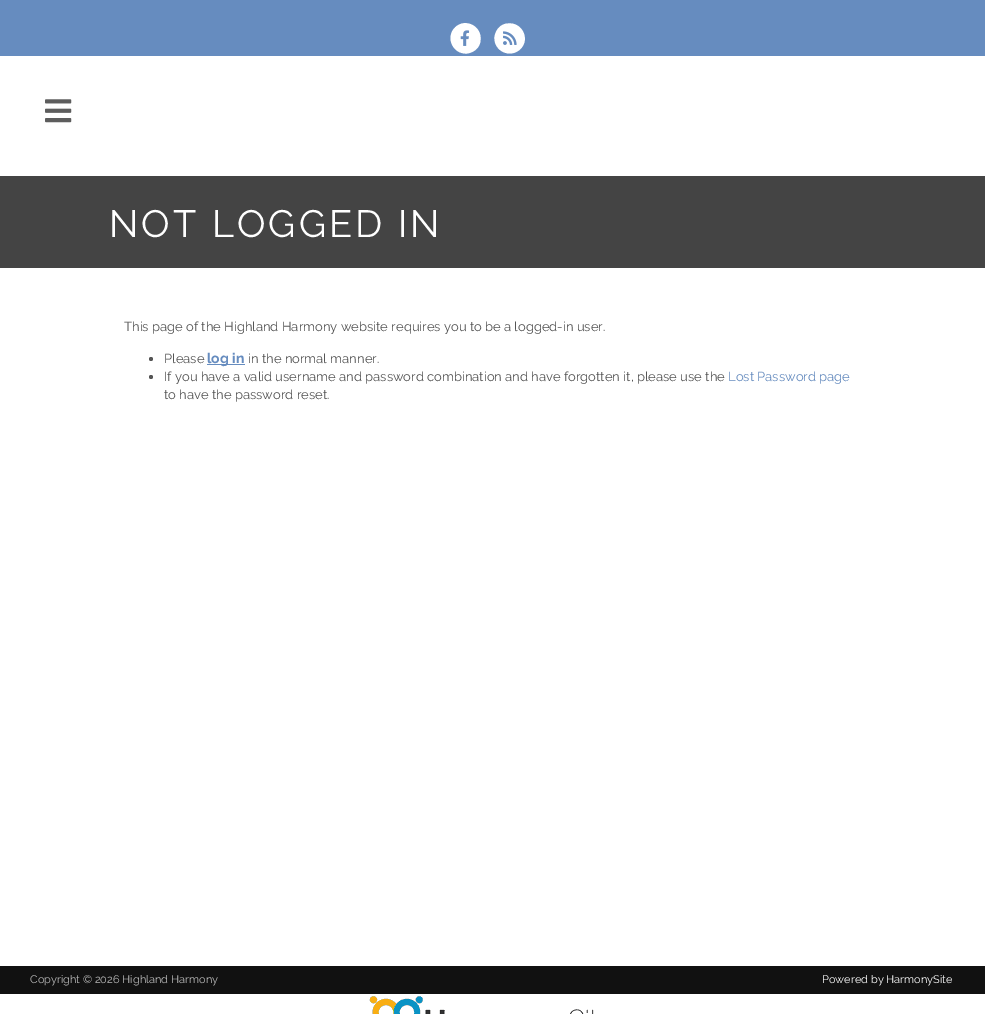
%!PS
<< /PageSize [985 1014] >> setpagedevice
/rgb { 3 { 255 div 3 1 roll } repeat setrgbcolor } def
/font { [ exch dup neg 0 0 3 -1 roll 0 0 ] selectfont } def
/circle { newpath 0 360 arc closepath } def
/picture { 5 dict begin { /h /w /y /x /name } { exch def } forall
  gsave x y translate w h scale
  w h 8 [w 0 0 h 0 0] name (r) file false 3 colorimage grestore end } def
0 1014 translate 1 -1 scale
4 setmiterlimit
255 255 255 rgb
0 0 985 1014 rectfill
102 140 191 rgb
0 0 985 56 rectfill
255 255 255 rgb
455 27.5 moveto 465 17.5 482 26 480.5 40 curveto 480.5 43.5 479 46.5 476.5 49 curveto 474 51.5 470.5 53 467 53.5 curveto 453 54.5 445 37.5 455 27.5 curveto closepath fill
(img/1.rgb) 460 30 10 16 picture
499 27.5 moveto 501.5 25 504.5 23.5 508 23.5 curveto 522 22 530.5 39 520.5 49 curveto 510 59 493.5 51 494.5 37 curveto 495 33.5 496.5 30 499 27.5 curveto closepath fill
(img/2.rgb) 503 31 14 14 picture
(img/3.rgb) 45 99 27 24 picture
68 68 68 rgb
0 176 985 92 rectfill
85 85 85 rgb
151 359 2 circle fill
102 140 191 rgb
207 364 38 1 rectfill
85 85 85 rgb
151 377 2 circle fill
17 17 17 rgb
0 966 985 28 rectfill
(img/4.rgb) 369 996 225 18 picture
/Raleway-Regular 38 font
255 255 255 rgb
109 237 moveto 3 0 (NOT LOGGED IN) ashow
/Raleway-Regular 13 font
85 85 85 rgb
124 331 moveto (This page of the Highland Harmony website requires you to be a logged-in user.) show
164 363 moveto (Please) show
/Raleway-Bold 14 font
102 140 191 rgb
207 363 moveto (log in) show
/Raleway-Regular 13 font
85 85 85 rgb
248 363 moveto (in the normal manner.) show
164 381 moveto (If you have a valid username and password combination and have forgotten it, please use the) show
102 140 191 rgb
728 381 moveto (Lost Password page) show
85 85 85 rgb
164 399 moveto (to have the password reset.) show
/Raleway-Regular 11 font
187 187 187 rgb
30 983 moveto (Copyright © 2026 Highland Harmony) show
255 255 255 rgb
822 983 moveto (Powered by HarmonySite) show
showpage
